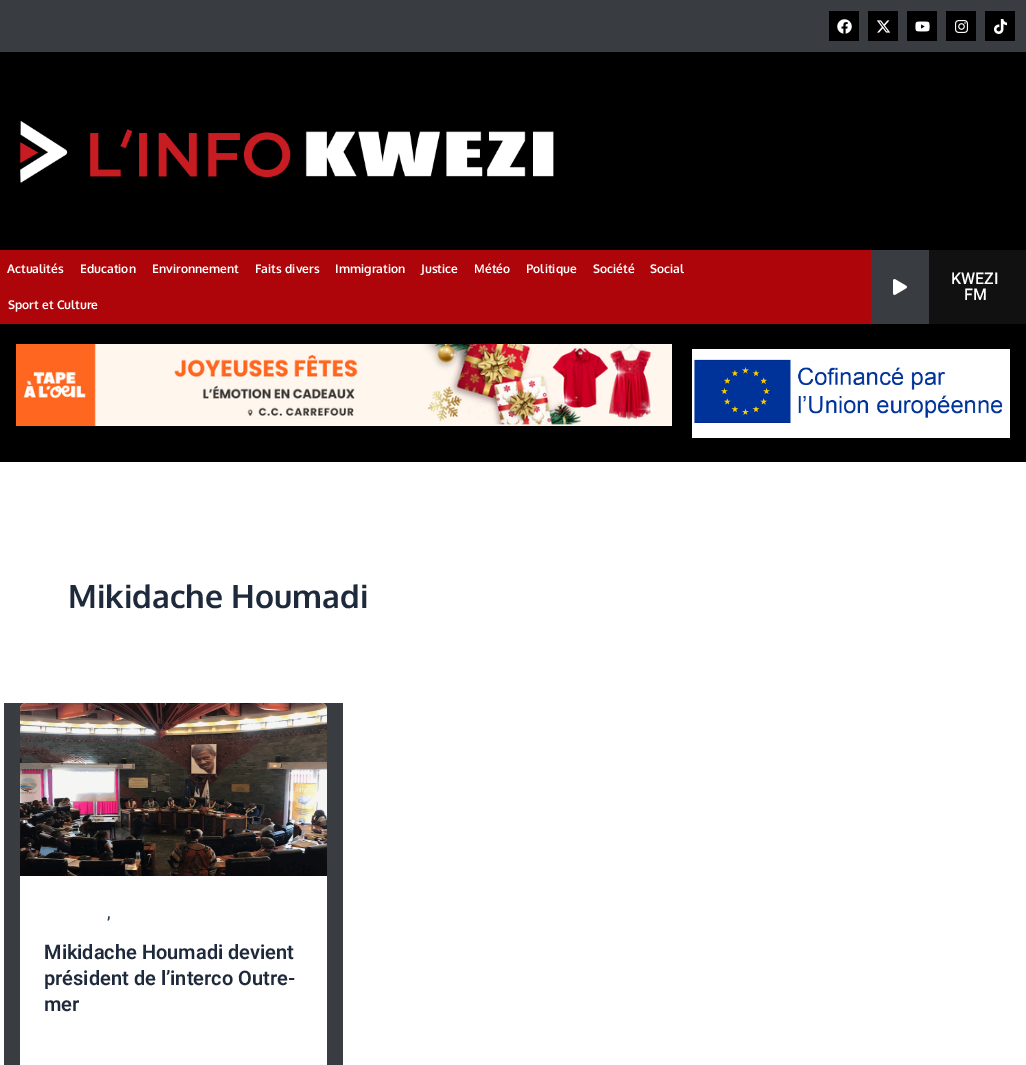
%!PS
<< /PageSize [1026 1065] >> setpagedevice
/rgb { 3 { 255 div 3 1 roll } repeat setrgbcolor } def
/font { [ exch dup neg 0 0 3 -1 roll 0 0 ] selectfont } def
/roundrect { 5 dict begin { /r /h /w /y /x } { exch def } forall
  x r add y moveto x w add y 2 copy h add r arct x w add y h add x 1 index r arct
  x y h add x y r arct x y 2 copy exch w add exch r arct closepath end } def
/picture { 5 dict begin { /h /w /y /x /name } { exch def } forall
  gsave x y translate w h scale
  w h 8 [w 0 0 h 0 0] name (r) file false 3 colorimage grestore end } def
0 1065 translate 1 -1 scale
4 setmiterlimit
255 255 255 rgb
0 0 1026 1065 rectfill
57 60 64 rgb
0 0 1026 52 rectfill
0 0 0 rgb
829 11 30 30 rectfill
(img/1.rgb) 837 19 15 15 picture
868 11 30 30 rectfill
(img/2.rgb) 876 20 15 13 picture
907 11 30 30 rectfill
(img/3.rgb) 915 21 15 11 picture
946 11 30 30 rectfill
(img/4.rgb) 955 20 14 13 picture
985 11 30 30 rectfill
(img/5.rgb) 994 19 14 15 picture
0 52 1026 198 rectfill
(img/6.rgb) 20 121 534 62 picture
[
  [0 250 871 74 173 5 9]
  [929 250 97 74 17 17 17]
  [871 250 58 74 57 60 64]
] { aload pop rgb rectfill } forall
(img/7.rgb) 893 279 14 16 picture
0 0 0 rgb
0 324 1026 138 rectfill
(img/8.rgb) 16 344 656 82 picture
(img/9.rgb) 692 349 318 89 picture
57 60 64 rgb
4 703 339 362 rectfill
255 255 255 rgb
20 703 307 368 6 roundrect fill
(img/10.rgb) 20 703 307 173 picture
/Oxygen-Bold 12 font
[
  [(Actualités) 7 273]
  [(Education) 80 273]
  [(Environnement) 152 273]
  [(Faits divers) 255 273]
  [(Immigration) 335 273]
  [(Justice) 421 273]
  [(Météo) 474 273]
  [(Politique) 526 273]
  [(Société) 593 273]
  [(Social) 650 273]
  [(Sport et Culture) 8 309]
] { aload pop moveto show } forall
/Roboto-Medium 16 font
951 284 moveto (KWEZI) show
964 300 moveto (FM) show
/Oxygen-Bold 32 font
30 41 59 rgb
68 608 moveto (Mikidache Houmadi) show
/Roboto-SemiBold 16 font
51 65 85 rgb
107 918 moveto (,) show
/Roboto-SemiBold 20 font
30 41 59 rgb
[
  [(Mikidache Houmadi devient) 44 959]
  [(président de l’interco Outre-) 44 985]
  [(mer) 44 1011]
] { aload pop moveto show } forall
showpage
